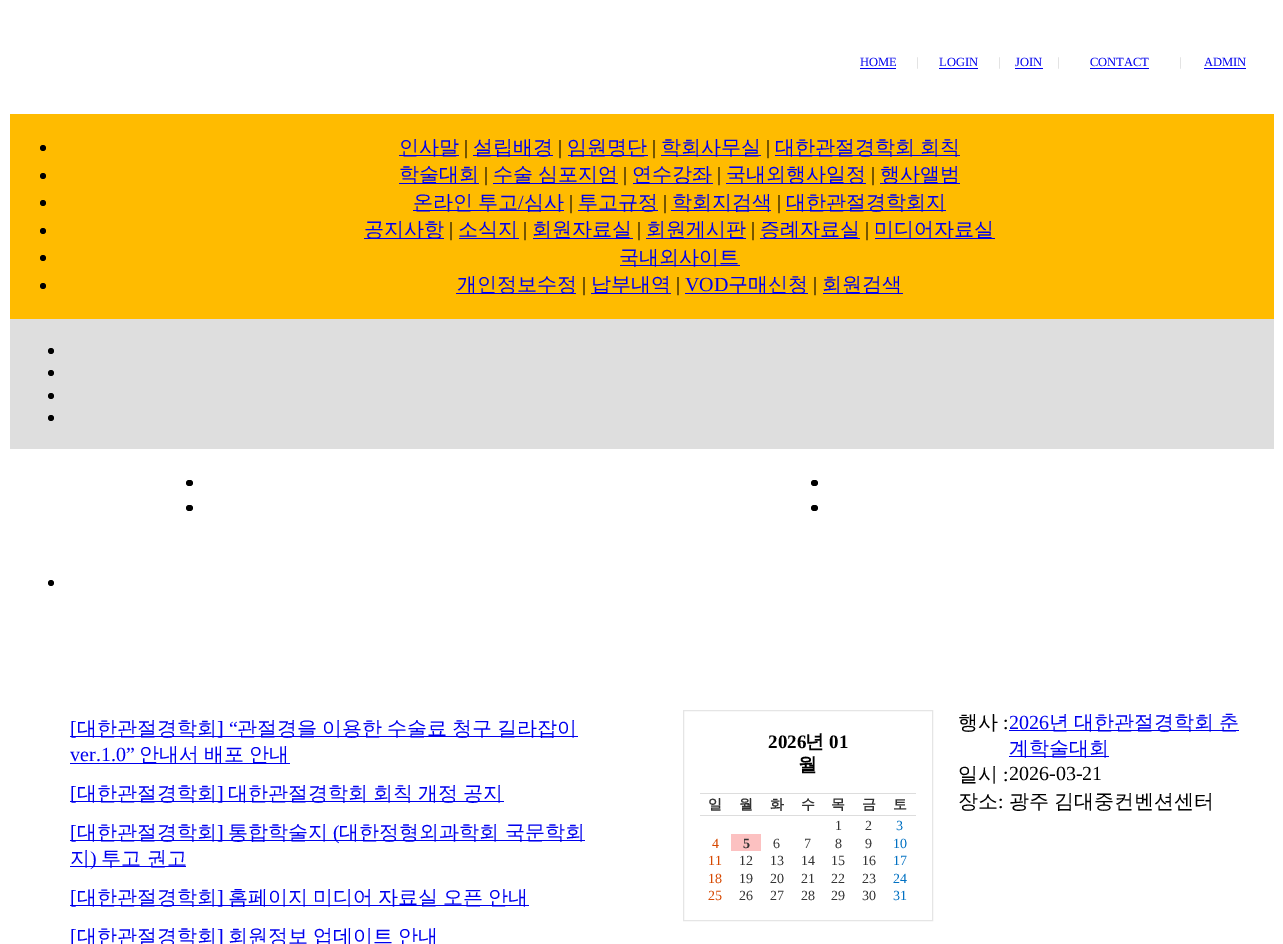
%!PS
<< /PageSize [1283 944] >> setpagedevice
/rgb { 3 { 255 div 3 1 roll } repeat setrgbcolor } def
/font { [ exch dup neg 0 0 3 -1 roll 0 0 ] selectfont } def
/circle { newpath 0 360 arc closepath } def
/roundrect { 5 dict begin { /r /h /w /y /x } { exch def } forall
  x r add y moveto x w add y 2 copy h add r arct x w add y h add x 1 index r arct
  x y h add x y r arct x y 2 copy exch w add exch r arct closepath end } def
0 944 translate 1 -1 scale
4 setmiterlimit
255 255 255 rgb
0 0 1283 944 rectfill
[
  [860 68 36 1 0 0 238]
  [939 68 39 1 0 0 238]
  [1015 68 28 1 0 0 238]
  [1090 68 59 1 0 0 238]
  [1204 68 42 1 0 0 238]
  [10 114 1264 205 255 187 0]
] { aload pop rgb rectfill } forall
0 0 0 rgb
43 148 3 circle fill
[
  [399 155 60 1 0 0 238]
  [473 155 80 1 0 0 238]
  [568 155 80 1 0 0 238]
  [661 155 100 1 0 0 238]
  [775 155 185 1 0 0 238]
] { aload pop rgb rectfill } forall
0 0 0 rgb
43 176 3 circle fill
[
  [399 183 80 1 0 0 238]
  [493 183 125 1 0 0 238]
  [633 183 80 1 0 0 238]
  [726 183 140 1 0 0 238]
  [880 183 80 1 0 0 238]
] { aload pop rgb rectfill } forall
0 0 0 rgb
43 203 3 circle fill
[
  [413 210 151 1 0 0 238]
  [578 210 80 1 0 0 238]
  [671 210 100 1 0 0 238]
  [786 210 160 1 0 0 238]
] { aload pop rgb rectfill } forall
0 0 0 rgb
43 231 3 circle fill
[
  [364 238 80 1 0 0 238]
  [459 238 60 1 0 0 238]
  [533 238 100 1 0 0 238]
  [646 238 100 1 0 0 238]
  [760 238 100 1 0 0 238]
  [875 238 120 1 0 0 238]
] { aload pop rgb rectfill } forall
0 0 0 rgb
43 258 3 circle fill
0 0 238 rgb
620 265 120 1 rectfill
0 0 0 rgb
43 286 3 circle fill
[
  [456 293 120 1 0 0 238]
  [591 293 80 1 0 0 238]
  [685 293 123 1 0 0 238]
  [823 293 80 1 0 0 238]
  [10 319 1264 130 222 222 222]
] { aload pop rgb rectfill } forall
0 0 0 rgb
51 351 3 circle fill
51 373 3 circle fill
51 396 3 circle fill
51 418 3 circle fill
186 480 7 6 3 roundrect fill
186 505 7 6 3 roundrect fill
811 480 7 6 3 roundrect fill
811 505 7 6 3 roundrect fill
51 583 3 circle fill
[
  [70 736 508 1 0 0 238]
  [70 763 220 1 0 0 238]
  [70 801 434 1 0 0 238]
  [70 840 515 1 0 0 238]
  [70 866 116 1 0 0 238]
  [70 905 459 1 0 0 238]
] { aload pop rgb rectfill } forall
229 229 229 rgb
683.5 710.5 249 210 rectstroke
[
  [700 793 216 1 221 221 221]
  [700 815 216 1 221 221 221]
  [731 834 30 17 252 193 193]
  [1009 730 230 1 0 0 238]
  [1009 756 100 1 0 0 238]
] { aload pop rgb rectfill } forall
/LiberationSerif-Regular 12.5 font
860 66 moveto (HOME) show
204 204 204 rgb
916 66 moveto (|) show
0 0 238 rgb
939 66 moveto (LOGIN) show
204 204 204 rgb
998 66 moveto (|) show
0 0 238 rgb
1015 66 moveto (JOIN) show
204 204 204 rgb
1057 66 moveto (|) show
0 0 238 rgb
1090 66 moveto (CONTACT) show
204 204 204 rgb
1179 66 moveto (|) show
0 0 238 rgb
1204 66 moveto (ADMIN) show
/WenQuanYiZenHei-Medium 20 font
399 154 moveto (인사말) show
/LiberationSerif-Regular 20 font
0 0 0 rgb
464 154 moveto (|) show
/WenQuanYiZenHei-Medium 20 font
0 0 238 rgb
473 154 moveto (설립배경) show
/LiberationSerif-Regular 20 font
0 0 0 rgb
558 154 moveto (|) show
/WenQuanYiZenHei-Medium 20 font
0 0 238 rgb
567 154 moveto (임원명단) show
/LiberationSerif-Regular 20 font
0 0 0 rgb
652 154 moveto (|) show
/WenQuanYiZenHei-Medium 20 font
0 0 238 rgb
661 154 moveto (학회사무실) show
/LiberationSerif-Regular 20 font
0 0 0 rgb
766 154 moveto (|) show
/WenQuanYiZenHei-Medium 20 font
0 0 238 rgb
775 154 moveto -1 0 32 (대한관절경학회 회칙) widthshow
399 181 moveto (학술대회) show
/LiberationSerif-Regular 20 font
0 0 0 rgb
484 181 moveto (|) show
/WenQuanYiZenHei-Medium 20 font
0 0 238 rgb
493 181 moveto -1 0 32 (수술 심포지엄) widthshow
/LiberationSerif-Regular 20 font
0 0 0 rgb
623 181 moveto (|) show
/WenQuanYiZenHei-Medium 20 font
0 0 238 rgb
632 181 moveto (연수강좌) show
/LiberationSerif-Regular 20 font
0 0 0 rgb
717 181 moveto (|) show
/WenQuanYiZenHei-Medium 20 font
0 0 238 rgb
726 181 moveto (국내외행사일정) show
/LiberationSerif-Regular 20 font
0 0 0 rgb
871 181 moveto (|) show
/WenQuanYiZenHei-Medium 20 font
0 0 238 rgb
880 181 moveto (행사앨범) show
413 209 moveto -1 0 32 (온라인 투고) widthshow
/LiberationSerif-Regular 20 font
518 209 moveto (/) show
/WenQuanYiZenHei-Medium 20 font
524 209 moveto (심사) show
/LiberationSerif-Regular 20 font
0 0 0 rgb
569 209 moveto (|) show
/WenQuanYiZenHei-Medium 20 font
0 0 238 rgb
578 209 moveto (투고규정) show
/LiberationSerif-Regular 20 font
0 0 0 rgb
663 209 moveto (|) show
/WenQuanYiZenHei-Medium 20 font
0 0 238 rgb
672 209 moveto (학회지검색) show
/LiberationSerif-Regular 20 font
0 0 0 rgb
777 209 moveto (|) show
/WenQuanYiZenHei-Medium 20 font
0 0 238 rgb
786 209 moveto (대한관절경학회지) show
364 236 moveto (공지사항) show
/LiberationSerif-Regular 20 font
0 0 0 rgb
449 236 moveto (|) show
/WenQuanYiZenHei-Medium 20 font
0 0 238 rgb
458 236 moveto (소식지) show
/LiberationSerif-Regular 20 font
0 0 0 rgb
523 236 moveto (|) show
/WenQuanYiZenHei-Medium 20 font
0 0 238 rgb
532 236 moveto (회원자료실) show
/LiberationSerif-Regular 20 font
0 0 0 rgb
637 236 moveto (|) show
/WenQuanYiZenHei-Medium 20 font
0 0 238 rgb
646 236 moveto (회원게시판) show
/LiberationSerif-Regular 20 font
0 0 0 rgb
751 236 moveto (|) show
/WenQuanYiZenHei-Medium 20 font
0 0 238 rgb
760 236 moveto (증례자료실) show
/LiberationSerif-Regular 20 font
0 0 0 rgb
865 236 moveto (|) show
/WenQuanYiZenHei-Medium 20 font
0 0 238 rgb
[
  [(미디어자료실) 874 236]
  [(국내외사이트) 619 264]
  [(개인정보수정) 457 291]
] { aload pop moveto show } forall
/LiberationSerif-Regular 20 font
0 0 0 rgb
582 291 moveto (|) show
/WenQuanYiZenHei-Medium 20 font
0 0 238 rgb
591 291 moveto (납부내역) show
/LiberationSerif-Regular 20 font
0 0 0 rgb
676 291 moveto (|) show
0 0 238 rgb
685 291 moveto (VOD) show
/WenQuanYiZenHei-Medium 20 font
728 291 moveto (구매신청) show
/LiberationSerif-Regular 20 font
0 0 0 rgb
813 291 moveto (|) show
/WenQuanYiZenHei-Medium 20 font
0 0 238 rgb
822 291 moveto (회원검색) show
/LiberationSerif-Regular 20 font
70 735 moveto ([) show
/WenQuanYiZenHei-Medium 20 font
77 735 moveto (대한관절경학회) show
/LiberationSerif-Regular 20 font
217 735 moveto (] “) show
/WenQuanYiZenHei-Medium 20 font
[
  [(관절경을) 237 735]
  [(이용한) 322 735]
  [(수술료) 387 735]
  [(청구) 452 735]
  [(길라잡이) 497 735]
] { aload pop moveto show } forall
/LiberationSerif-Regular 20 font
70 761 moveto (ver.1.0”) show
/WenQuanYiZenHei-Medium 20 font
139 761 moveto -1 0 32 (안내서 배포 안내) widthshow
/LiberationSerif-Regular 20 font
70 800 moveto ([) show
/WenQuanYiZenHei-Medium 20 font
77 800 moveto (대한관절경학회) show
/LiberationSerif-Regular 20 font
217 800 moveto (]) show
/WenQuanYiZenHei-Medium 20 font
228 800 moveto -1 0 32 (대한관절경학회 회칙 개정 공지) widthshow
/LiberationSerif-Regular 20 font
70 839 moveto ([) show
/WenQuanYiZenHei-Medium 20 font
77 839 moveto (대한관절경학회) show
/LiberationSerif-Regular 20 font
217 839 moveto (]) show
/WenQuanYiZenHei-Medium 20 font
228 839 moveto (통합학술지) show
/LiberationSerif-Regular 20 font
333 839 moveto (\() show
/WenQuanYiZenHei-Medium 20 font
339 839 moveto (대한정형외과학회 국문학회) show
70 865 moveto (지) show
/LiberationSerif-Regular 20 font
90 865 moveto (\)) show
/WenQuanYiZenHei-Medium 20 font
101 865 moveto (투고 권고) show
/LiberationSerif-Regular 20 font
70 904 moveto ([) show
/WenQuanYiZenHei-Medium 20 font
77 904 moveto (대한관절경학회) show
/LiberationSerif-Regular 20 font
217 904 moveto (]) show
/WenQuanYiZenHei-Medium 20 font
228 904 moveto -1 0 32 (홈페이지 미디어 자료실 오픈 안내) widthshow
/LiberationSerif-Regular 20 font
70 943 moveto ([) show
/WenQuanYiZenHei-Medium 20 font
77 943 moveto (대한관절경학회) show
/LiberationSerif-Regular 20 font
217 943 moveto (]) show
/WenQuanYiZenHei-Medium 20 font
228 943 moveto -1 0 32 (회원정보 업데이트 안내) widthshow
/LiberationSerif-Bold 19 font
0 0 0 rgb
768 748 moveto (2026) show
/WenQuanYiZenHei-Bold 19 font
805 748 moveto (년) show
/LiberationSerif-Bold 19 font
829 748 moveto (01) show
/WenQuanYiZenHei-Bold 19 font
798 771 moveto (월) show
/WenQuanYiZenHei-Bold 14 font
51 51 51 rgb
[
  [(일) 708 809]
  [(월) 739 809]
  [(화) 770 809]
  [(수) 801 809]
  [(목) 831 809]
  [(금) 862 809]
  [(토) 893 809]
] { aload pop moveto show } forall
/LiberationSerif-Regular 14 font
835 830 moveto (1) show
865 830 moveto (2) show
1 113 195 rgb
896 830 moveto (3) show
215 72 0 rgb
712 848 moveto (4) show
/LiberationSerif-Bold 14 font
51 51 51 rgb
743 848 moveto (5) show
/LiberationSerif-Regular 14 font
[
  [(6) 773 848]
  [(7) 804 848]
  [(8) 835 848]
  [(9) 865 848]
] { aload pop moveto show } forall
1 113 195 rgb
893 848 moveto (10) show
215 72 0 rgb
708 865 moveto (11) show
51 51 51 rgb
[
  [(12) 739 865]
  [(13) 770 865]
  [(14) 801 865]
  [(15) 831 865]
  [(16) 862 865]
] { aload pop moveto show } forall
1 113 195 rgb
893 865 moveto (17) show
215 72 0 rgb
708 883 moveto (18) show
51 51 51 rgb
[
  [(19) 739 883]
  [(20) 770 883]
  [(21) 801 883]
  [(22) 831 883]
  [(23) 862 883]
] { aload pop moveto show } forall
1 113 195 rgb
893 883 moveto (24) show
215 72 0 rgb
708 900 moveto (25) show
51 51 51 rgb
[
  [(26) 739 900]
  [(27) 770 900]
  [(28) 801 900]
  [(29) 831 900]
  [(30) 862 900]
] { aload pop moveto show } forall
1 113 195 rgb
893 900 moveto (31) show
/WenQuanYiZenHei-Medium 20 font
0 0 0 rgb
958 729 moveto (행사) show
/LiberationSerif-Regular 20 font
1003 729 moveto (:) show
0 0 238 rgb
1009 729 moveto (2026) show
/WenQuanYiZenHei-Medium 20 font
1049 729 moveto -1 0 32 (년 대한관절경학회 춘) widthshow
1009 755 moveto (계학술대회) show
0 0 0 rgb
958 781 moveto (일시) show
/LiberationSerif-Regular 20 font
1003 781 moveto (:) show
1009 780 moveto (2026-03-21) show
/WenQuanYiZenHei-Medium 20 font
958 808 moveto (장소) show
/LiberationSerif-Regular 20 font
998 808 moveto (:) show
/WenQuanYiZenHei-Medium 20 font
1009 808 moveto -1 0 32 (광주 김대중컨벤션센터) widthshow
showpage
